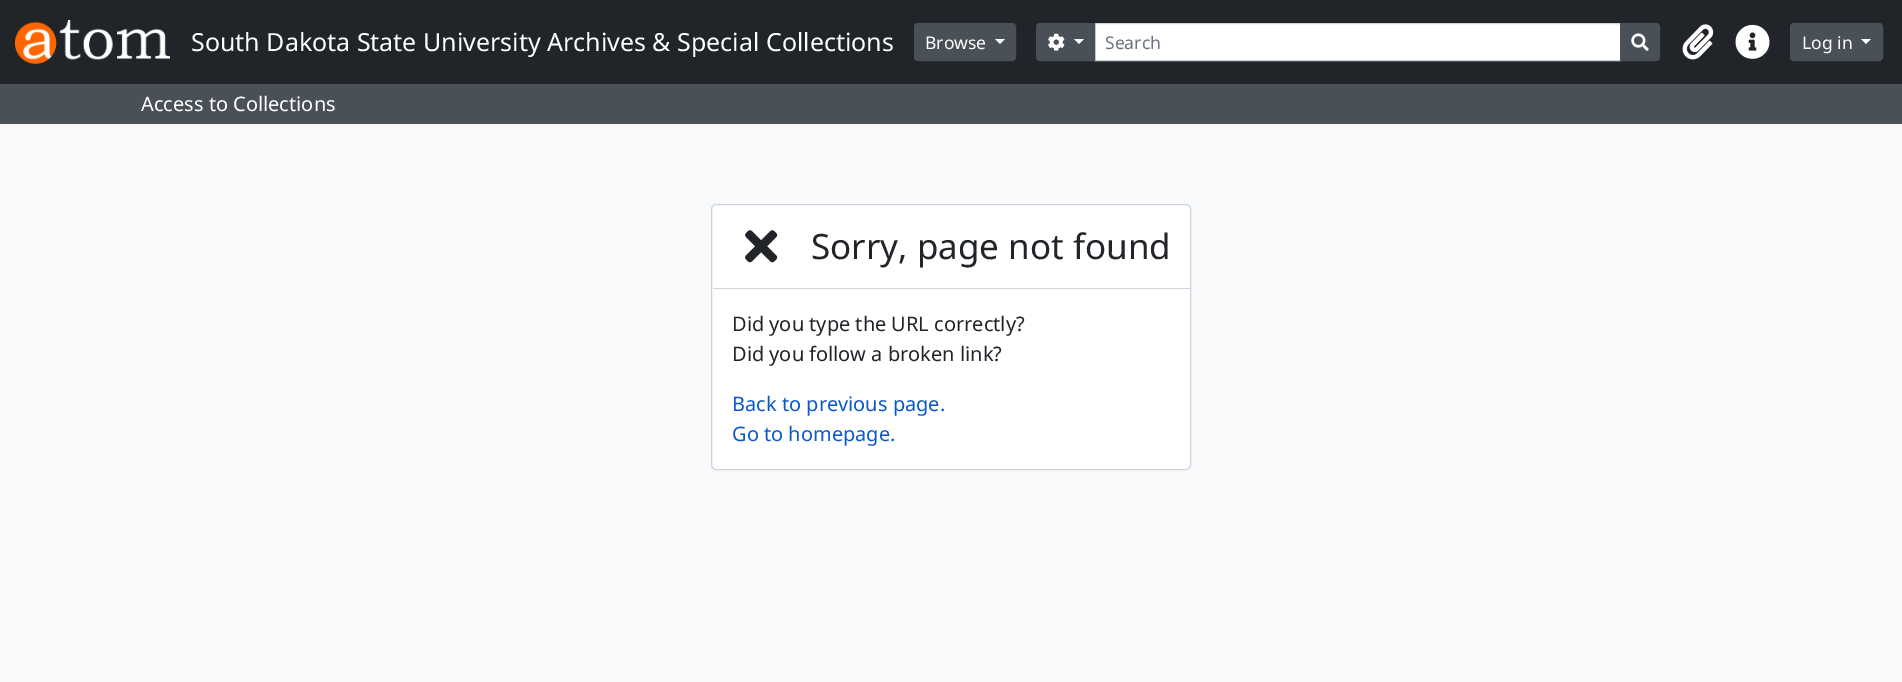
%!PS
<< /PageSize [1902 682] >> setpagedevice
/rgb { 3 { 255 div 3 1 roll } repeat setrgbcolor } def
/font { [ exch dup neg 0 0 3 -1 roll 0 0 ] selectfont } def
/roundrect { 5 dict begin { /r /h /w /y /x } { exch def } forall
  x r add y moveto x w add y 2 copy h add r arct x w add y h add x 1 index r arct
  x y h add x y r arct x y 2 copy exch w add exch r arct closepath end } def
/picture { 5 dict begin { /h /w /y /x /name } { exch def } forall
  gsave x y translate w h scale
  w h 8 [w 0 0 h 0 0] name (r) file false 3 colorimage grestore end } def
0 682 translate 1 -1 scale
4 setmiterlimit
248 249 250 rgb
0 0 1902 682 rectfill
33 37 41 rgb
0 0 1902 84 rectfill
(img/1.rgb) 15 20 155 44 picture
73 80 87 rgb
914.5 23.5 101 37 3.5 roundrect gsave fill grestore
stroke
255 255 255 rgb
995 39 moveto 1005 39 lineto 1000 44 lineto closepath fill
1094.5 23.5 moveto 1620.5 23.5 lineto 1620.5 60.5 lineto 1094.5 60.5 lineto closepath gsave fill grestore
206 212 218 rgb
stroke
73 80 87 rgb
1040 23.5 moveto 1094.5 23.5 lineto 1094.5 60.5 lineto 1040 60.5 lineto 1038 60.5 1036.5 59 1036.5 57 curveto 1036.5 27 lineto 1036.5 25 1038 23.5 1040 23.5 curveto closepath gsave fill grestore
stroke
(img/2.rgb) 1048 33 17 18 picture
255 255 255 rgb
1074 39 moveto 1084 39 lineto 1079 44 lineto closepath fill
73 80 87 rgb
1620.5 23.5 moveto 1656 23.5 lineto 1658 23.5 1659.5 25 1659.5 27 curveto 1659.5 57 lineto 1659.5 59 1658 60.5 1656 60.5 curveto 1620.5 60.5 lineto closepath gsave fill grestore
stroke
(img/3.rgb) 1631 33 18 18 picture
(img/4.rgb) 1682 24 32 36 picture
(img/5.rgb) 1735 24 35 35 picture
1790.5 23.5 92 37 3.5 roundrect gsave fill grestore
stroke
255 255 255 rgb
1861 39 moveto 1871 39 lineto 1866 44 lineto closepath fill
73 80 87 rgb
0 84 1902 40 rectfill
255 255 255 rgb
711.5 204.5 479 265 4.5 roundrect gsave fill grestore
206 212 218 rgb
stroke
713 288 477 1 rectfill
(img/6.rgb) 745 230 33 33 picture
/NotoSans-Regular 25 font
255 255 255 rgb
191 51 moveto (South Dakota State University Archives & Special Collections) show
/NotoSans-Regular 17.5 font
925 49 moveto (Browse) show
108 117 125 rgb
1105 49 moveto (Search) show
255 255 255 rgb
1802 49 moveto (Log in) show
/NotoSans-Regular 20 font
141 111 moveto (Access to Collections) show
/NotoSans-Regular 35 font
33 37 41 rgb
811 259 moveto (Sorry, page not found) show
/NotoSans-Regular 20 font
732 331 moveto (Did you type the URL correctly?) show
732 361 moveto (Did you follow a broken link?) show
10 88 202 rgb
732 411 moveto (Back to previous page.) show
732 441 moveto (Go to homepage.) show
showpage
